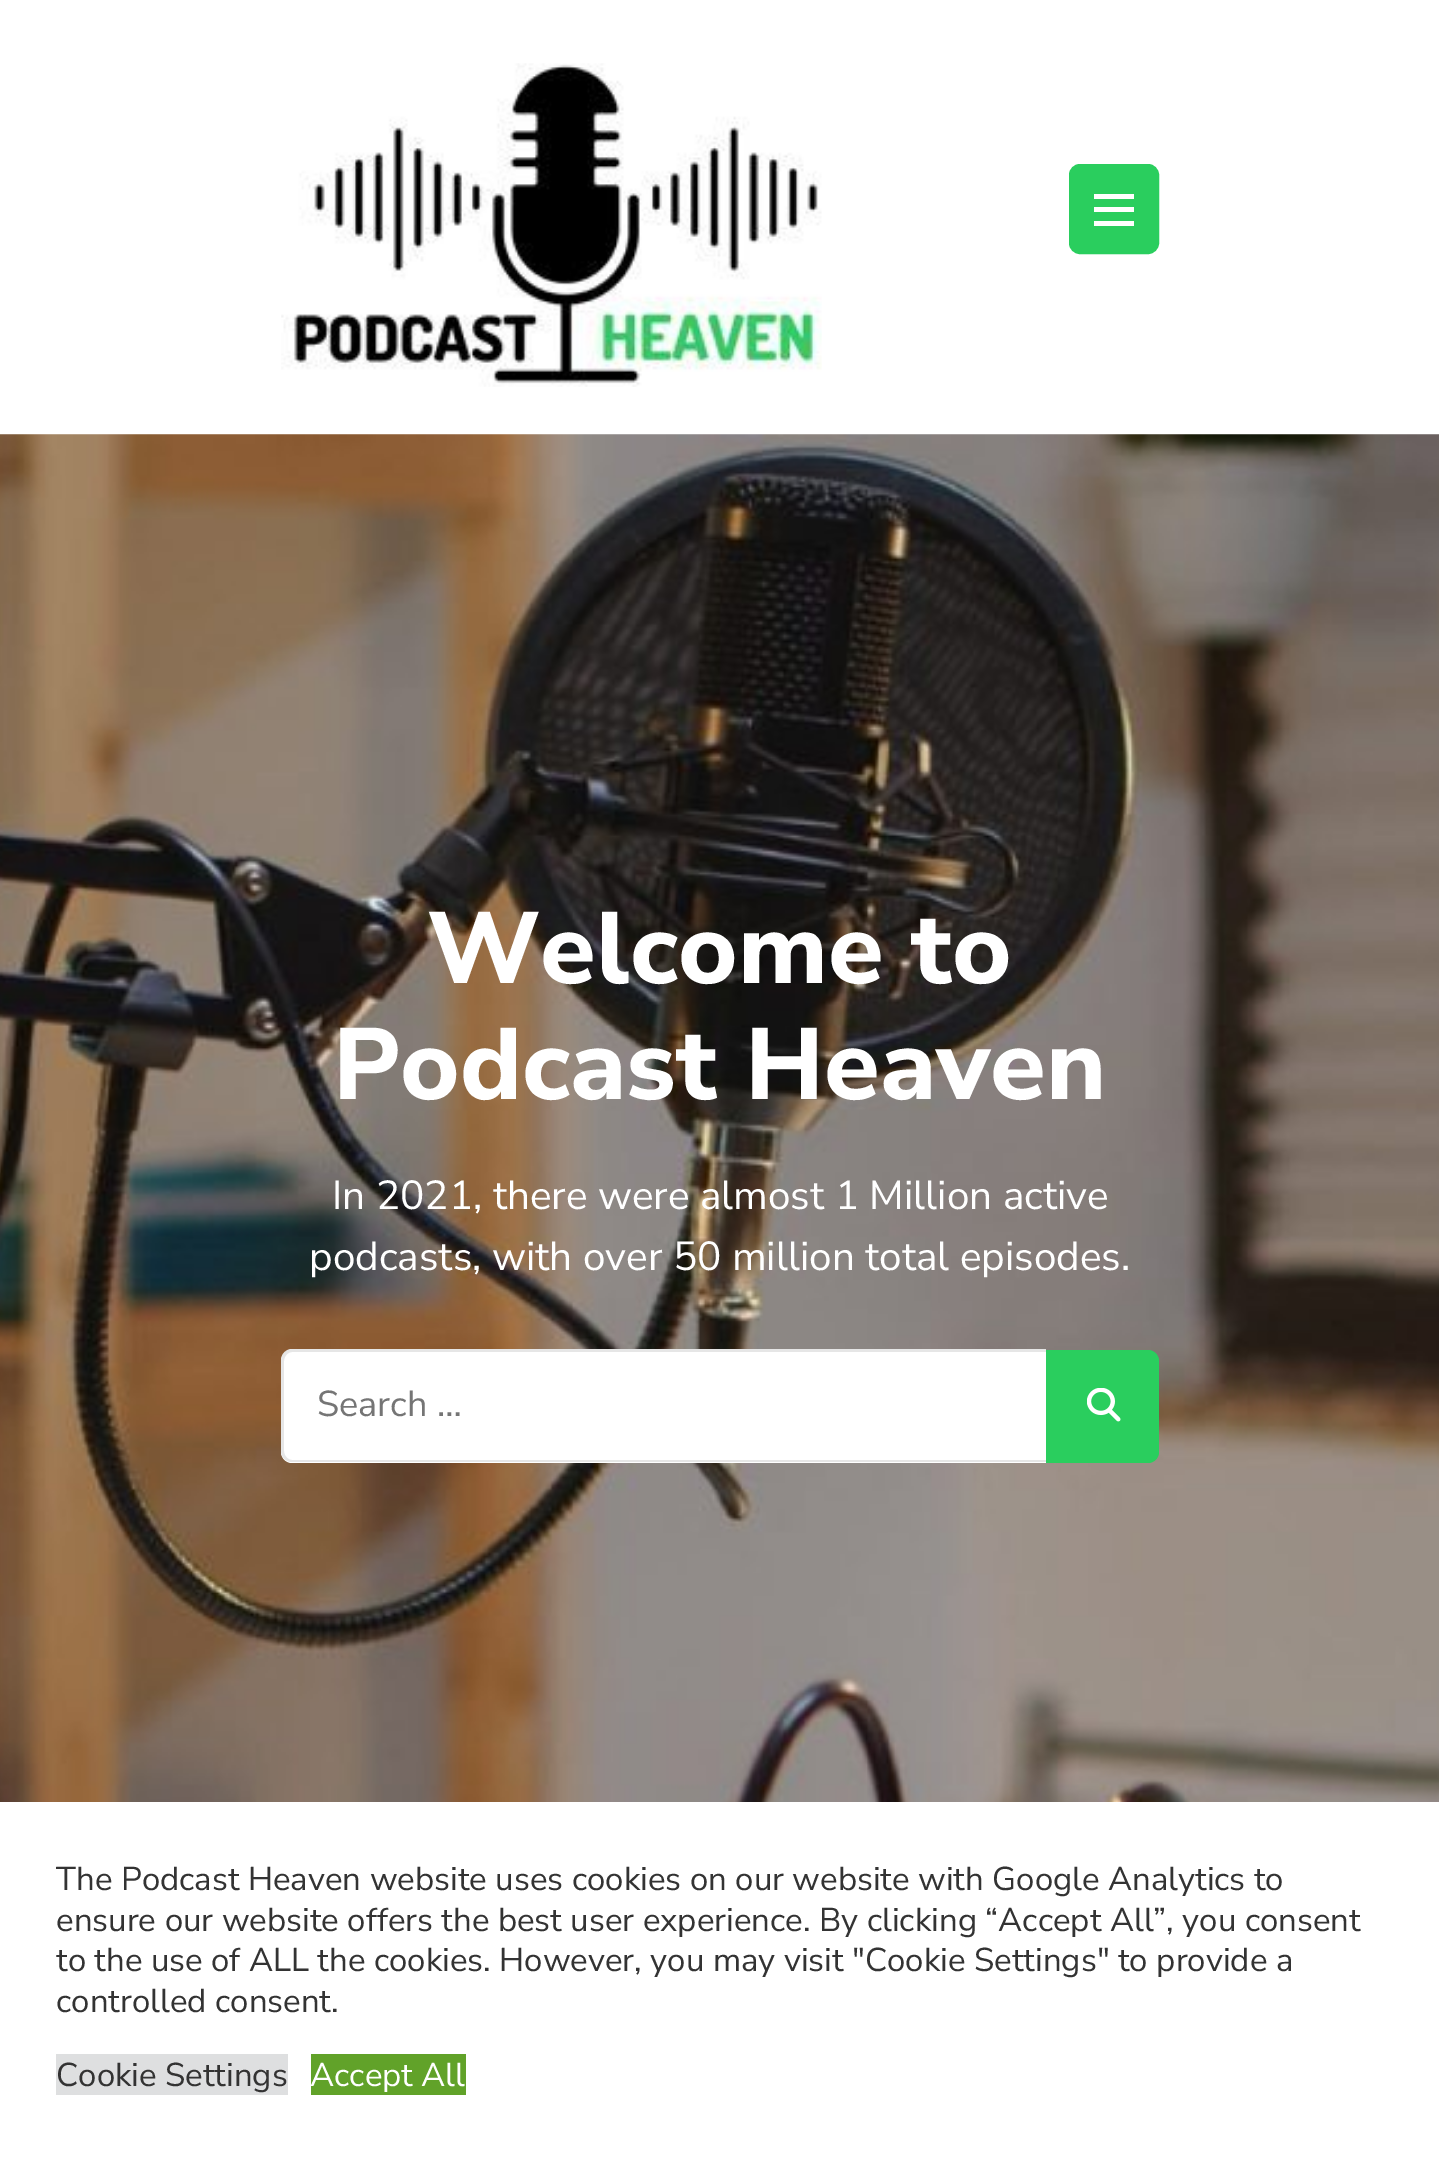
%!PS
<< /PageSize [1439 2162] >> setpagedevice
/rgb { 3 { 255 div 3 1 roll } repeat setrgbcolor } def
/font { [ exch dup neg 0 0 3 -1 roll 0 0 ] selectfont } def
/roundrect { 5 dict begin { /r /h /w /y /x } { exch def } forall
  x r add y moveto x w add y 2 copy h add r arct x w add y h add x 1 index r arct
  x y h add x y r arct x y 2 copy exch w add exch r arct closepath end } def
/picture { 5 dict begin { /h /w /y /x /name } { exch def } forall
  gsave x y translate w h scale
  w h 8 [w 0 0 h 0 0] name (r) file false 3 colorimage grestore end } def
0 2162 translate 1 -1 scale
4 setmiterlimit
255 255 255 rgb
0 0 1439 2162 rectfill
(img/1.rgb) 281 63 541 324 picture
42 206 94 rgb
1070 165 88 88 10 roundrect gsave fill grestore
2 setlinewidth
stroke
[
  [1094 194 40 5 255 255 255]
  [1094 207 40 5 255 255 255]
  [1094 221 40 5 255 255 255]
] { aload pop rgb rectfill } forall
(img/2.rgb) 0 434 1439 1368 picture
292 1350 moveto 1046 1350 lineto 1046 1463 lineto 292 1463 lineto 286 1463 281 1458 281 1452 curveto 281 1361 lineto 281 1355 286 1350 292 1350 curveto closepath fill
230 230 230 rgb
292 1349 moveto 1046 1349 lineto 1046 1462 lineto 292 1462 lineto 286 1462 281 1457 281 1451 curveto 281 1361 lineto 281 1354 286 1349 292 1349 curveto closepath 292 1352 moveto 1046 1352 lineto 1046 1460 lineto 292 1460 lineto 288 1460 284 1456 284 1451 curveto 284 1361 lineto 284 1356 288 1352 292 1352 curveto closepath eofill
42 206 94 rgb
1046 1350 moveto 1148 1350 lineto 1154 1350 1159 1355 1159 1361 curveto 1159 1452 lineto 1159 1458 1154 1463 1148 1463 curveto 1046 1463 lineto closepath fill
(img/3.rgb) 1087 1388 34 34 picture
222 223 224 rgb
56 2054 232 41 rectfill
97 162 41 rgb
311 2054 155 41 rectfill
/NunitoSans-ExtraBold 101.25 font
255 255 255 rgb
427 983 moveto (Welcome to) show
333 1099 moveto (Podcast Heaven) show
/NunitoSans-Regular 40.5 font
332 1209 moveto (In 2021, there were almost 1 Million active) show
309 1270 moveto (podcasts, with over 50 million total episodes.) show
/NunitoSans-Regular 36 font
117 117 117 rgb
317 1416 moveto (Search …) show
/NunitoSans-Regular 33 font
51 51 51 rgb
[
  [(The Podcast Heaven website uses cookies on our website with Google Analytics to) 56 1890]
  [(ensure our website offers the best user experience. By clicking “Accept All”, you consent) 56 1931]
  [(to the use of ALL the cookies. However, you may visit "Cookie Settings" to provide a) 56 1971]
  [(controlled consent.) 56 2012]
  [(Cookie Settings) 56 2086]
] { aload pop moveto show } forall
255 255 255 rgb
310 2086 moveto (Accept All) show
showpage
